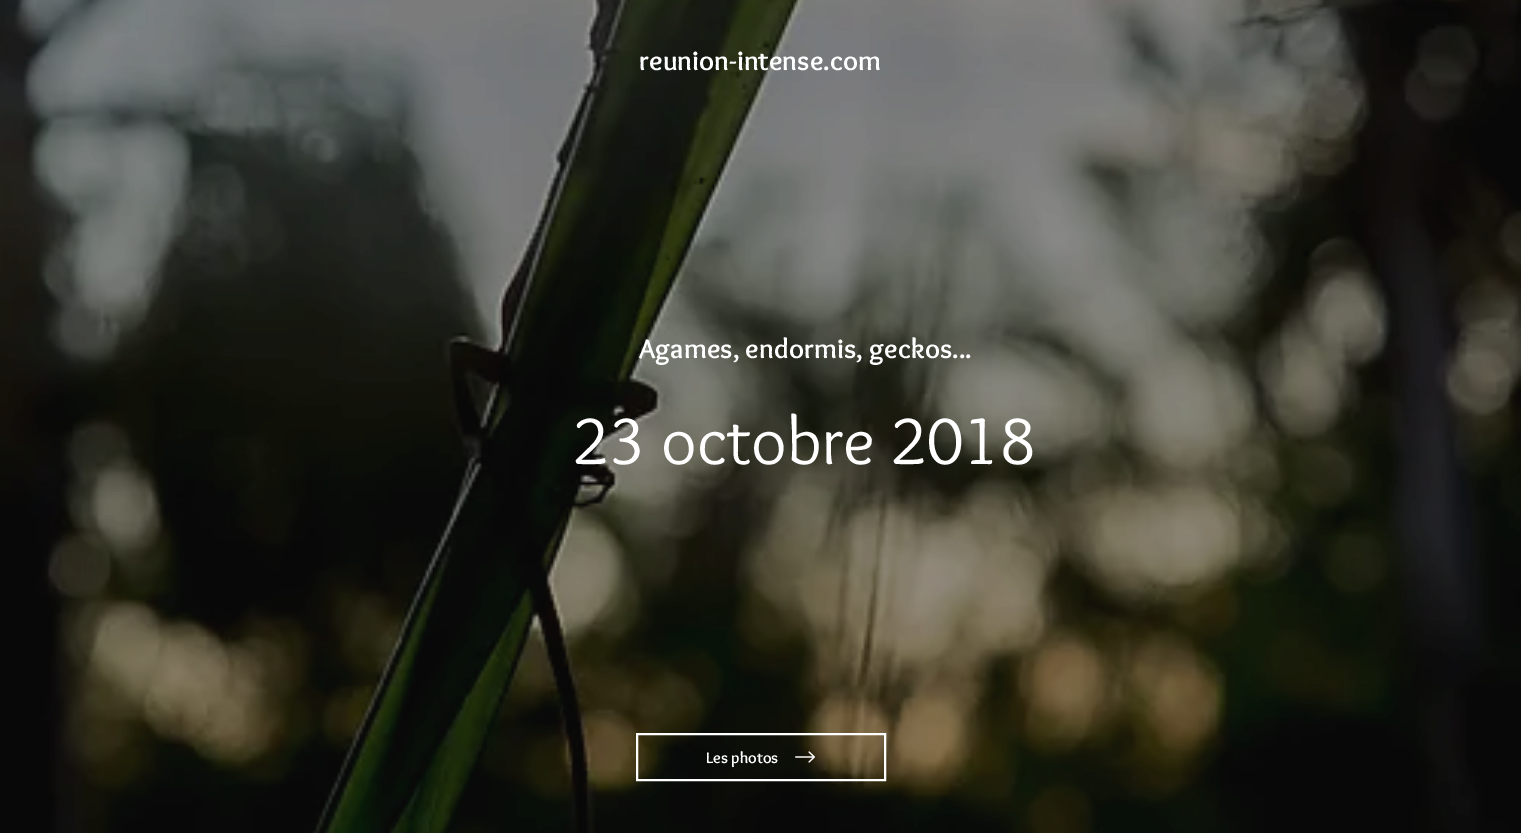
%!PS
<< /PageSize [1521 833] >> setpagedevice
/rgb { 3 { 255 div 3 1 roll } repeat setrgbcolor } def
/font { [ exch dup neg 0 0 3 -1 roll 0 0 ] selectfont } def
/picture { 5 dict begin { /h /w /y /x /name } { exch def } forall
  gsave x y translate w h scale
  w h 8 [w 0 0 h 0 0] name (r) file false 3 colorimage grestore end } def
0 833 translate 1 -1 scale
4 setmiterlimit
19 19 19 rgb
0 0 1521 833 rectfill
(img/1.rgb) 0 0 1521 833 picture
255 255 255 rgb
2 setlinewidth
637 734 248 46 rectstroke
(img/2.rgb) 795 751 20 12 picture
/Overlock-Bold 28 font
639 70 moveto (reunion-intense.com) show
639 358 moveto (Agames, endormis, geckos...) show
/Overlock-Regular 68 font
573 464 moveto (23 octobre 2018) show
/Overlock-Bold 16 font
706 763 moveto (Les photos) show
showpage
